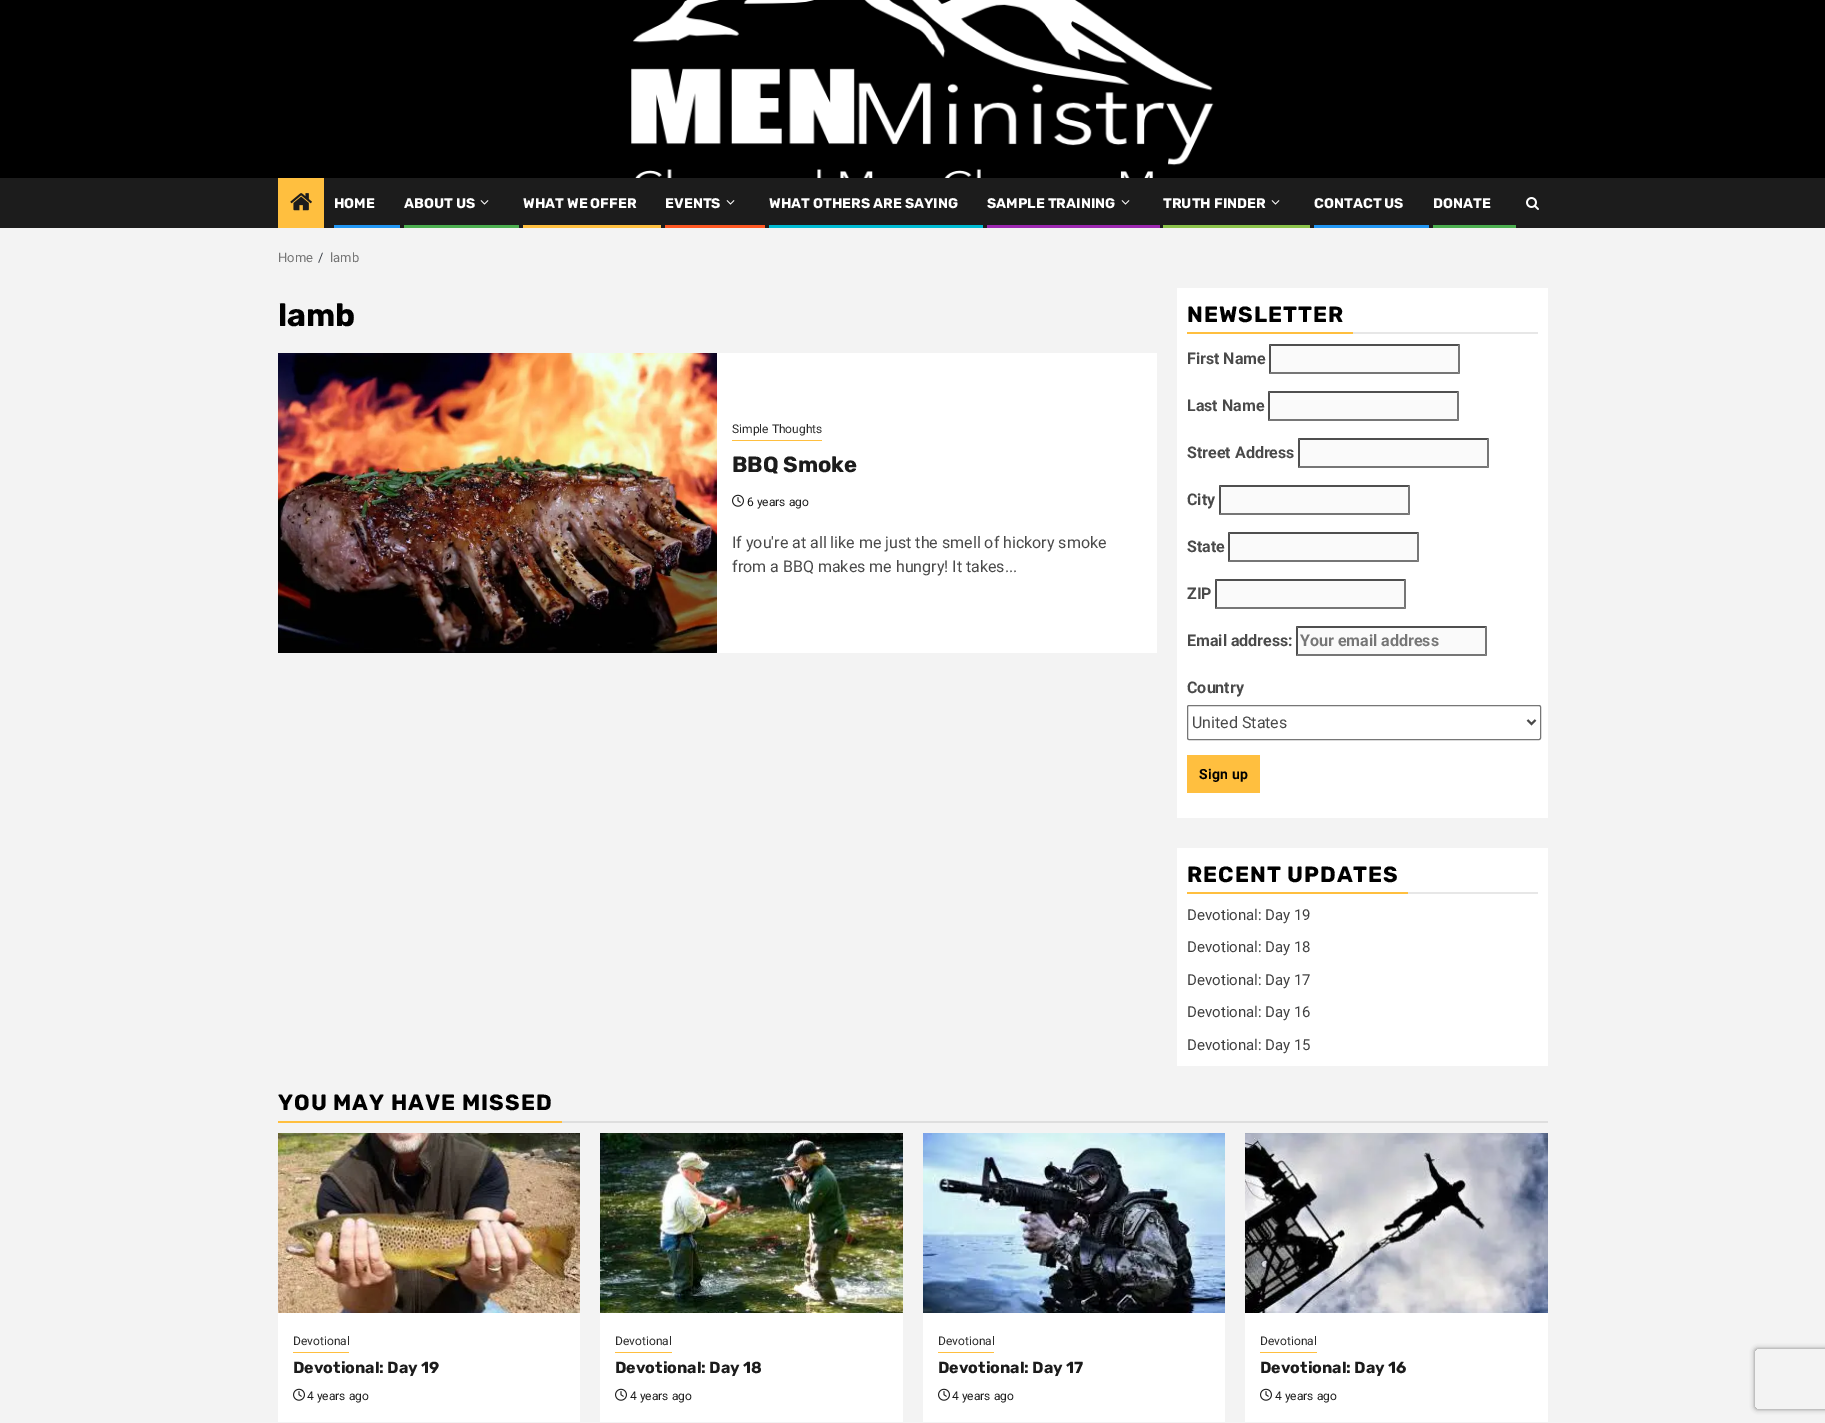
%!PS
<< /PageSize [1825 1423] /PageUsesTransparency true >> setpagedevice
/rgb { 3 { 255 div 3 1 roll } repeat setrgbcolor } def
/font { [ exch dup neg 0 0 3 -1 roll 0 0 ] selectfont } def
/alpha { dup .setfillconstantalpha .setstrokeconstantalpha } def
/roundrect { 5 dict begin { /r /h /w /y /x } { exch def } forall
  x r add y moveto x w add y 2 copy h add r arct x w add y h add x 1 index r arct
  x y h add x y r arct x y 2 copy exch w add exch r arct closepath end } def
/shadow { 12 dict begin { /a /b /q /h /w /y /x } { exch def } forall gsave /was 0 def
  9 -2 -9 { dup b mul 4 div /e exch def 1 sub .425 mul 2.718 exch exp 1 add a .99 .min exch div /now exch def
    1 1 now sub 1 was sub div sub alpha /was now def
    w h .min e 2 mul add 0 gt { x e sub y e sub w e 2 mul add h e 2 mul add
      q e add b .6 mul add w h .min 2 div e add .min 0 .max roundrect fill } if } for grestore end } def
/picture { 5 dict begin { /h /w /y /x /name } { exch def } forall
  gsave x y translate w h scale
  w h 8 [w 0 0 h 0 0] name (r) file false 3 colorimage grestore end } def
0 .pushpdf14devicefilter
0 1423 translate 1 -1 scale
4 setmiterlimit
243 243 243 rgb
0 0 1825 1423 rectfill
(img/1.rgb) 0 0 1825 178 picture
28 28 28 rgb
0 178 1825 50 rectfill
255 191 63 rgb
278 178 46 50 rectfill
(img/2.rgb) 290 193 22 18 picture
33 150 243 rgb
334 225 66 3 rectfill
(img/3.rgb) 480 200 9 5 picture
76 175 80 rgb
404 225 115 3 rectfill
255 191 63 rgb
523 225 138 3 rectfill
(img/3.rgb) 726 200 9 5 picture
255 87 34 rgb
665 225 100 3 rectfill
0 188 212 rgb
769 225 214 3 rectfill
(img/3.rgb) 1121 200 9 5 picture
156 39 176 rgb
987 225 173 3 rectfill
(img/3.rgb) 1271 200 9 5 picture
[
  [1163 225 147 3 139 195 74]
  [1314 225 115 3 33 150 243]
  [1433 225 83 3 76 175 80]
] { aload pop rgb rectfill } forall
(img/4.rgb) 1526 197 13 13 picture
255 255 255 rgb
717 353 440 300 rectfill
(img/5.rgb) 278 353 439 300 picture
255 191 63 rgb
732 440 90 1 rectfill
(img/6.rgb) 732 494 12 13 picture
[
  [1177 288 371 530 255 255 255]
  [1187 332 166 2 255 191 63]
  [1353 332 185 2 231 231 231]
  [1269 344 191 30 250 250 250]
] { aload pop rgb rectfill } forall
79 79 79 rgb
1269 344 moveto 1460 344 lineto 1458 346 lineto 1271 346 lineto closepath fill
118 118 118 rgb
1460 344 moveto 1460 374 lineto 1458 372 lineto 1458 346 lineto closepath fill
1460 374 moveto 1269 374 lineto 1271 372 lineto 1458 372 lineto closepath fill
79 79 79 rgb
1269 374 moveto 1269 344 lineto 1271 346 lineto 1271 372 lineto closepath fill
250 250 250 rgb
1268 391 191 30 rectfill
79 79 79 rgb
1268 391 moveto 1459 391 lineto 1457 393 lineto 1270 393 lineto closepath fill
118 118 118 rgb
1459 391 moveto 1459 421 lineto 1457 419 lineto 1457 393 lineto closepath fill
1459 421 moveto 1268 421 lineto 1270 419 lineto 1457 419 lineto closepath fill
79 79 79 rgb
1268 421 moveto 1268 391 lineto 1270 393 lineto 1270 419 lineto closepath fill
250 250 250 rgb
1298 438 191 30 rectfill
79 79 79 rgb
1298 438 moveto 1489 438 lineto 1487 440 lineto 1300 440 lineto closepath fill
118 118 118 rgb
1489 438 moveto 1489 468 lineto 1487 466 lineto 1487 440 lineto closepath fill
1489 468 moveto 1298 468 lineto 1300 466 lineto 1487 466 lineto closepath fill
79 79 79 rgb
1298 468 moveto 1298 438 lineto 1300 440 lineto 1300 466 lineto closepath fill
250 250 250 rgb
1219 485 191 30 rectfill
79 79 79 rgb
1219 485 moveto 1410 485 lineto 1408 487 lineto 1221 487 lineto closepath fill
118 118 118 rgb
1410 485 moveto 1410 515 lineto 1408 513 lineto 1408 487 lineto closepath fill
1410 515 moveto 1219 515 lineto 1221 513 lineto 1408 513 lineto closepath fill
79 79 79 rgb
1219 515 moveto 1219 485 lineto 1221 487 lineto 1221 513 lineto closepath fill
250 250 250 rgb
1228 532 191 30 rectfill
79 79 79 rgb
1228 532 moveto 1419 532 lineto 1417 534 lineto 1230 534 lineto closepath fill
118 118 118 rgb
1419 532 moveto 1419 562 lineto 1417 560 lineto 1417 534 lineto closepath fill
1419 562 moveto 1228 562 lineto 1230 560 lineto 1417 560 lineto closepath fill
79 79 79 rgb
1228 562 moveto 1228 532 lineto 1230 534 lineto 1230 560 lineto closepath fill
250 250 250 rgb
1215 579 191 30 rectfill
79 79 79 rgb
1215 579 moveto 1406 579 lineto 1404 581 lineto 1217 581 lineto closepath fill
118 118 118 rgb
1406 579 moveto 1406 609 lineto 1404 607 lineto 1404 581 lineto closepath fill
1406 609 moveto 1215 609 lineto 1217 607 lineto 1404 607 lineto closepath fill
79 79 79 rgb
1215 609 moveto 1215 579 lineto 1217 581 lineto 1217 607 lineto closepath fill
250 250 250 rgb
1296 626 191 30 rectfill
79 79 79 rgb
1296 626 moveto 1487 626 lineto 1485 628 lineto 1298 628 lineto closepath fill
118 118 118 rgb
1487 626 moveto 1487 656 lineto 1485 654 lineto 1485 628 lineto closepath fill
1487 656 moveto 1296 656 lineto 1298 654 lineto 1485 654 lineto closepath fill
79 79 79 rgb
1296 656 moveto 1296 626 lineto 1298 628 lineto 1298 654 lineto closepath fill
118 118 118 rgb
1187.5 705.5 353 34 1.5 roundrect stroke
74 74 74 rgb
2 setlinewidth
1527.5 720 moveto 1531.5 724 lineto 1535.5 720 lineto stroke
[
  [1187 755 73 38 255 191 63]
  [1177 848 371 218 255 255 255]
  [1187 892 221 2 255 191 63]
  [1408 892 130 2 231 231 231]
  [278 1121 284 2 255 191 63]
  [562 1121 986 2 222 222 222]
  [278 1313 302 109 255 255 255]
] { aload pop rgb rectfill } forall
(img/7.rgb) 278 1133 302 180 picture
255 191 63 rgb
293 1352 56 1 rectfill
(img/6.rgb) 293 1388 12 13 picture
255 255 255 rgb
600 1313 303 109 rectfill
(img/8.rgb) 600 1133 303 180 picture
255 191 63 rgb
615 1352 57 1 rectfill
(img/6.rgb) 615 1388 12 13 picture
255 255 255 rgb
923 1313 302 109 rectfill
(img/9.rgb) 923 1133 302 180 picture
255 191 63 rgb
938 1352 56 1 rectfill
(img/6.rgb) 938 1388 12 13 picture
255 255 255 rgb
1245 1313 303 109 rectfill
(img/10.rgb) 1245 1133 303 180 picture
255 191 63 rgb
1260 1352 57 1 rectfill
(img/6.rgb) 1260 1388 12 13 picture
gsave
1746 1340 moveto 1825 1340 lineto 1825 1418 lineto 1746 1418 lineto closepath 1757 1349 moveto 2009 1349 lineto 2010 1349 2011 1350 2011 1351 curveto 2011 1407 lineto 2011 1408 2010 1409 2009 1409 curveto 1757 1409 lineto 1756 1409 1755 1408 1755 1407 curveto 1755 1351 lineto 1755 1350 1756 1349 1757 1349 curveto closepath eoclip newpath
128 128 128 rgb
1755 1349 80 60 2 2.5 1 shadow
grestore
/Rubik-Bold 14 font
255 255 255 rgb
[
  [(HOME) 334 208]
  [(ABOUT US) 404 208]
  [(WHAT WE OFFER) 523 208]
  [(EVENTS) 665 208]
  [(WHAT OTHERS ARE SAYING) 769 208]
  [(SAMPLE TRAINING) 987 208]
  [(TRUTH FINDER) 1163 208]
  [(CONTACT US) 1314 208]
  [(DONATE) 1433 208]
] { aload pop moveto show } forall
/Roboto-Regular 13 font
118 118 118 rgb
278 262 moveto (Home) show
57 62 70 rgb
318 262 moveto (/) show
118 118 118 rgb
330 262 moveto (lamb) show
/Rubik-Bold 32 font
0 0 0 rgb
278 326 moveto (lamb) show
/Roboto-Regular 12 font
43 43 43 rgb
732 433 moveto (Simple Thoughts) show
/Rubik-Bold 22 font
28 28 28 rgb
732 472 moveto (BBQ Smoke) show
/Roboto-Regular 12 font
747 506 moveto (6 years ago) show
/Roboto-Regular 16 font
74 74 74 rgb
732 548 moveto (If you're at all like me just the smell of hickory smoke) show
732 572 moveto (from a BBQ makes me hungry! It takes...) show
/Rubik-Bold 22 font
0 0 0 rgb
1187 322 moveto 1 0 (NEWSLETTER) ashow
/Roboto-Bold 16 font
74 74 74 rgb
[
  [(First Name) 1187 364]
  [(Last Name) 1187 411]
  [(Street Address) 1187 458]
  [(City) 1187 505]
  [(State) 1187 552]
  [(ZIP) 1187 599]
  [(Email address:) 1187 646]
] { aload pop moveto show } forall
118 118 118 rgb
1300 646 moveto (Your email address) show
74 74 74 rgb
1187 693 moveto (Country) show
/Roboto-Regular 16 font
1192 728 moveto (United States) show
/Roboto-Bold 14 font
0 0 0 rgb
1199 779 moveto 0.25 0 (Sign up) ashow
/Rubik-Bold 22 font
1187 882 moveto 1 0 (RECENT UPDATES) ashow
/Roboto-Regular 15 font
64 64 64 rgb
[
  [(Devotional: Day 19) 1187 920]
  [(Devotional: Day 18) 1187 952]
  [(Devotional: Day 17) 1187 985]
  [(Devotional: Day 16) 1187 1017]
  [(Devotional: Day 15) 1187 1050]
] { aload pop moveto show } forall
/Rubik-Bold 22 font
0 0 0 rgb
278 1110 moveto 1 0 (YOU MAY HAVE MISSED) ashow
/Roboto-Regular 12 font
43 43 43 rgb
293 1345 moveto (Devotional) show
/Rubik-Bold 16 font
28 28 28 rgb
293 1373 moveto (Devotional: Day 19) show
/Roboto-Regular 12 font
307 1400 moveto (4 years ago) show
43 43 43 rgb
615 1345 moveto (Devotional) show
/Rubik-Bold 16 font
28 28 28 rgb
615 1373 moveto (Devotional: Day 18) show
/Roboto-Regular 12 font
630 1400 moveto (4 years ago) show
43 43 43 rgb
938 1345 moveto (Devotional) show
/Rubik-Bold 16 font
28 28 28 rgb
938 1373 moveto (Devotional: Day 17) show
/Roboto-Regular 12 font
952 1400 moveto (4 years ago) show
43 43 43 rgb
1260 1345 moveto (Devotional) show
/Rubik-Bold 16 font
28 28 28 rgb
1260 1373 moveto (Devotional: Day 16) show
/Roboto-Regular 12 font
1275 1400 moveto (4 years ago) show
.poppdf14devicefilter showpage
